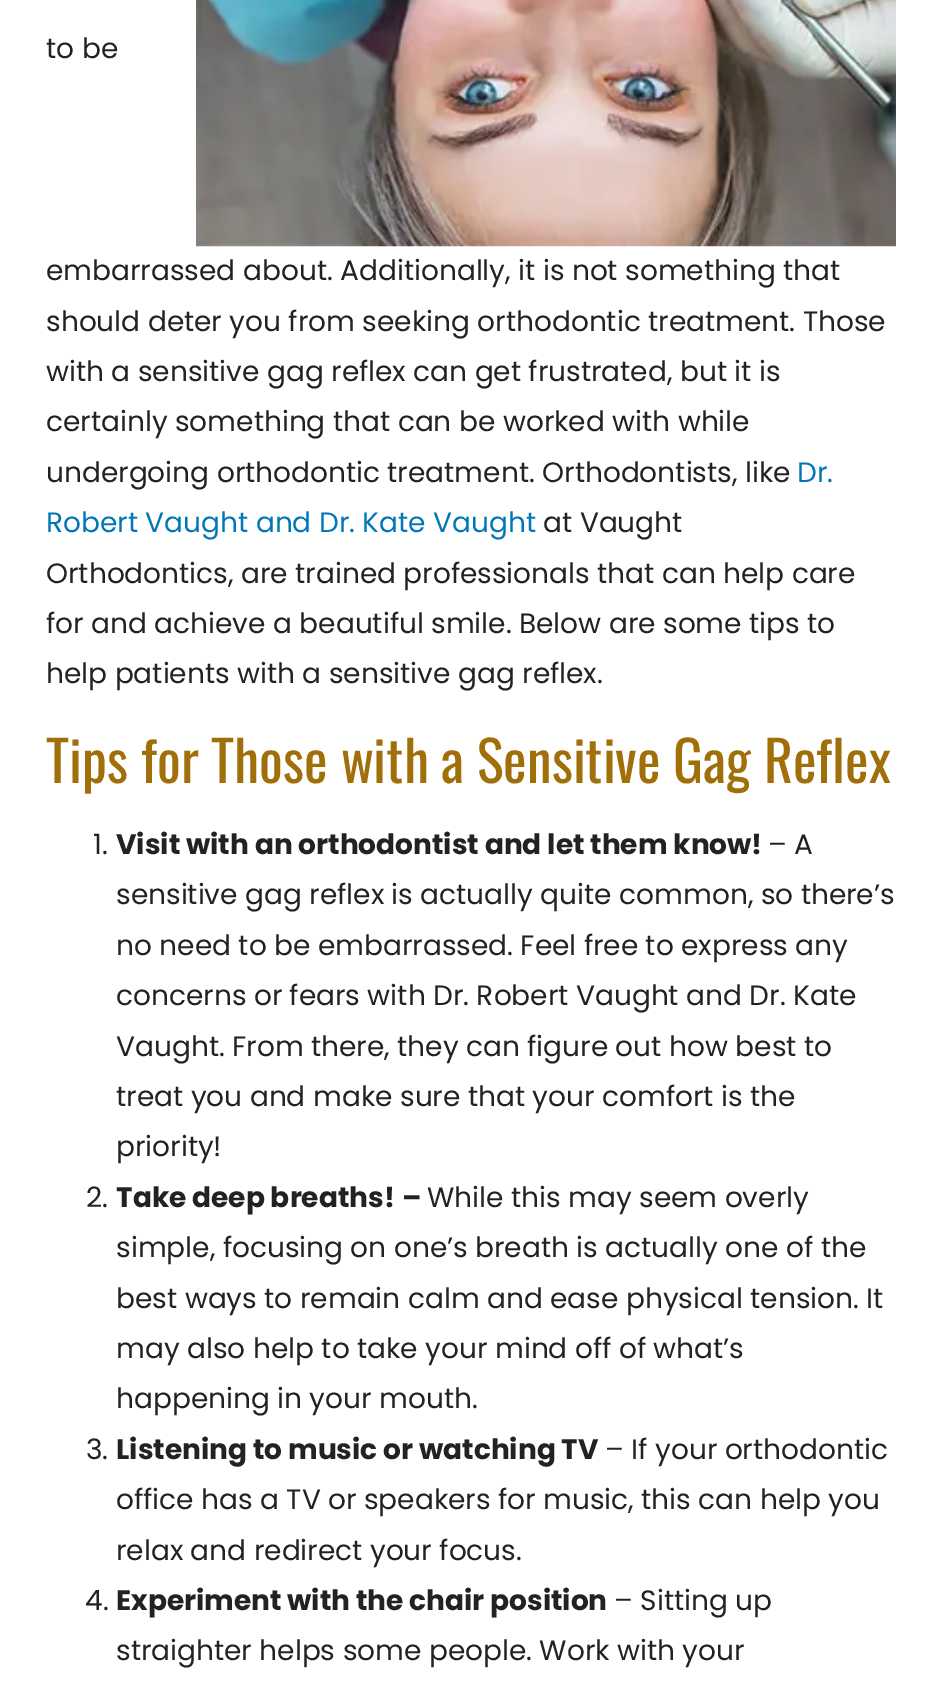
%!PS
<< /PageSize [940 1688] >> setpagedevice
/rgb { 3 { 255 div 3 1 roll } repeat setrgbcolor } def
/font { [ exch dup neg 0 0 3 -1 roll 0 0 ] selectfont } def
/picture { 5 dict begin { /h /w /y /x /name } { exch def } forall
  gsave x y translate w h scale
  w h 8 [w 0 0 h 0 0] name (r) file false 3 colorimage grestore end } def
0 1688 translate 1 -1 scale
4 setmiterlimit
255 255 255 rgb
0 0 940 1688 rectfill
(img/1.rgb) 196 0 700 247 picture
/Poppins-Regular 28 font
34 34 34 rgb
[
  [(to be) 46 58]
  [(embarrassed about. Additionally, it is not something that) 46 280]
  [(should deter you from seeking orthodontic treatment. Those) 46 331]
  [(with a sensitive gag reflex can get frustrated, but it is) 46 381]
  [(certainly something that can be worked with while) 46 431]
  [(undergoing orthodontic treatment. Orthodontists, like) 46 482]
] { aload pop moveto show } forall
2 119 184 rgb
797 482 moveto (Dr.) show
46 532 moveto (Robert Vaught and Dr. Kate Vaught) show
34 34 34 rgb
[
  [(at Vaught) 543 532]
  [(Orthodontics, are trained professionals that can help care) 46 583]
  [(for and achieve a beautiful smile. Below are some tips to) 46 633]
  [(help patients with a sensitive gag reflex.) 46 683]
] { aload pop moveto show } forall
/Oswald-Regular 56 font
161 111 10 rgb
46 783 moveto (Tips for Those with a Sensitive Gag Reflex) show
/Poppins-Regular 28 font
34 34 34 rgb
93 854 moveto (1.) show
/Poppins-Bold 28 font
116 854 moveto (Visit with an orthodontist and let them know!) show
/Poppins-Regular 28 font
[
  [(– A) 768 854]
  [(sensitive gag reflex is actually quite common, so there’s) 116 904]
  [(no need to be embarrassed. Feel free to express any) 116 955]
  [(concerns or fears with Dr. Robert Vaught and Dr. Kate) 116 1005]
  [(Vaught. From there, they can figure out how best to) 116 1056]
  [(treat you and make sure that your comfort is the) 116 1106]
  [(priority!) 116 1156]
  [(2.) 86 1207]
] { aload pop moveto show } forall
/Poppins-Bold 28 font
116 1207 moveto (Take deep breaths!) show
402 1207 moveto (–) show
/Poppins-Regular 28 font
[
  [(While this may seem overly) 427 1207]
  [(simple, focusing on one’s breath is actually one of the) 116 1257]
  [(best ways to remain calm and ease physical tension. It) 116 1308]
  [(may also help to take your mind off of what’s) 116 1358]
  [(happening in your mouth.) 116 1408]
  [(3.) 86 1459]
] { aload pop moveto show } forall
/Poppins-Bold 28 font
116 1459 moveto (Listening to music or watching TV) show
/Poppins-Regular 28 font
[
  [(– If your orthodontic) 605 1459]
  [(office has a TV or speakers for music, this can help you) 116 1509]
  [(relax and redirect your focus.) 116 1560]
  [(4.) 85 1610]
] { aload pop moveto show } forall
/Poppins-Bold 28 font
116 1610 moveto (Experiment with the chair position) show
/Poppins-Regular 28 font
614 1610 moveto (– Sitting up) show
116 1660 moveto (straighter helps some people. Work with your) show
showpage
